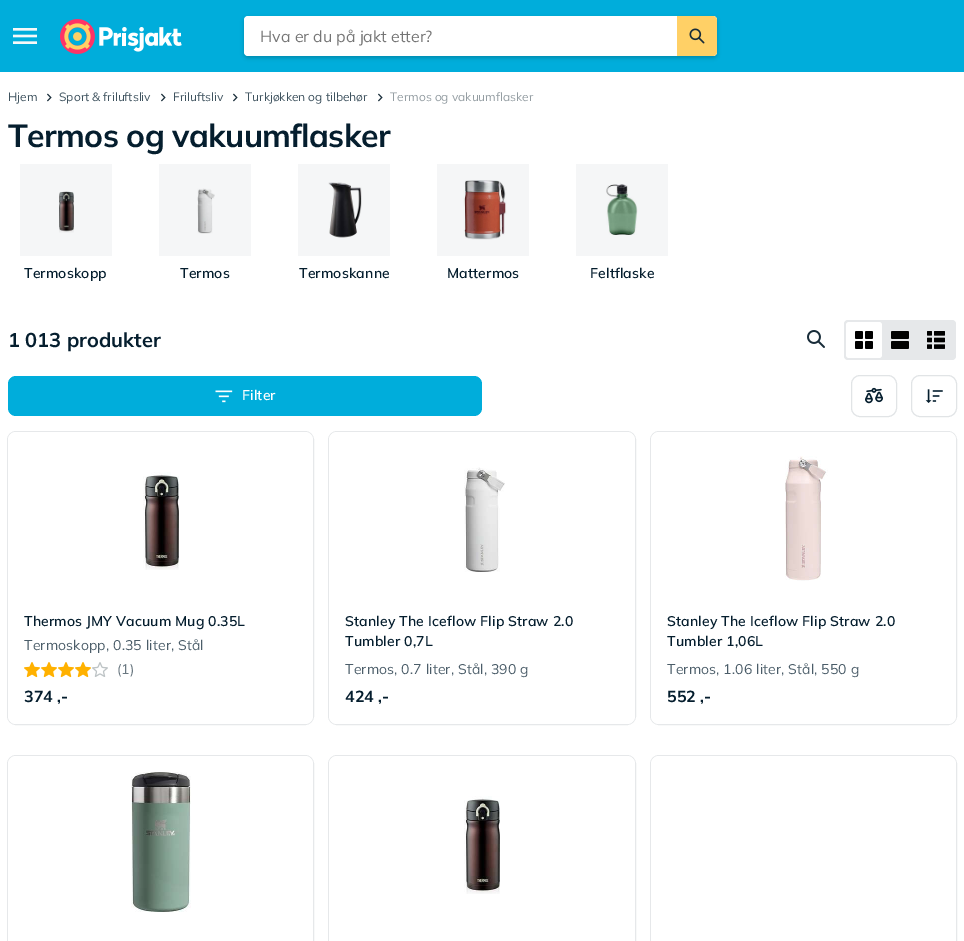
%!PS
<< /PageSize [964 941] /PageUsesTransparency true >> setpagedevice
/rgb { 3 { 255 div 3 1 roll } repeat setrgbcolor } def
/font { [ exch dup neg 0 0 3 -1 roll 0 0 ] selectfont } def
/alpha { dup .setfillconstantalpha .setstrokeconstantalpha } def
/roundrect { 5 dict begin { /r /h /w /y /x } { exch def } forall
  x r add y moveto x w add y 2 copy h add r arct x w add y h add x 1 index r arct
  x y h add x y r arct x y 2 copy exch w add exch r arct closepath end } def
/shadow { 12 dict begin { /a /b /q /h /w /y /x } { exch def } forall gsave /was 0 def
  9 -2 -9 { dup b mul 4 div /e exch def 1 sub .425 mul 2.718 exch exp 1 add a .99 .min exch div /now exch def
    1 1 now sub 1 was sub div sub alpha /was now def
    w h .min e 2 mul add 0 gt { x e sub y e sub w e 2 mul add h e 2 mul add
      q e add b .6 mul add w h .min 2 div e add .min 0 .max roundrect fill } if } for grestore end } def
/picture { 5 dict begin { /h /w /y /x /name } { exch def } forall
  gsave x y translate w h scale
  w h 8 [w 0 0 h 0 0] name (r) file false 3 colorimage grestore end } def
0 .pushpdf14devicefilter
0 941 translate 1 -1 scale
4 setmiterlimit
255 255 255 rgb
0 0 964 941 rectfill
0 173 219 rgb
0 0 964 72 rectfill
(img/1.rgb) 13 28 24 16 picture
(img/2.rgb) 60 19 122 35 picture
0 0 0 rgb
244 18 473 40 4 2 0.2 shadow
255 255 255 rgb
244 16 473 40 4 roundrect fill
255 208 102 rgb
677 16 moveto 713 16 lineto 715 16 717 18 717 20 curveto 717 52 lineto 717 54 715 56 713 56 curveto 677 56 lineto closepath fill
(img/3.rgb) 689 28 16 16 picture
(img/4.rgb) 47 93 5 9 picture
(img/4.rgb) 161 93 5 9 picture
(img/4.rgb) 233 93 5 9 picture
(img/4.rgb) 378 93 5 9 picture
(img/5.rgb) 59 191 15 42 picture
0.04 alpha
5 30 46 rgb
20 164 92 92 rectfill
1 alpha
(img/6.rgb) 197 188 18 46 picture
0.04 alpha
159 164 92 92 rectfill
1 alpha
(img/7.rgb) 328 182 34 56 picture
0.04 alpha
298 164 92 92 rectfill
1 alpha
(img/8.rgb) 463 180 44 60 picture
0.04 alpha
437 164 92 92 rectfill
1 alpha
(img/9.rgb) 606 184 32 51 picture
0.04 alpha
576 164 92 92 rectfill
1 alpha
(img/10.rgb) 807 330 18 18 picture
230 232 234 rgb
844 320 112 40 4 roundrect fill
255 255 255 rgb
846 322 36 36 3 roundrect fill
(img/11.rgb) 855 331 18 18 picture
(img/12.rgb) 891 331 18 18 picture
(img/13.rgb) 927 331 18 18 picture
0 173 219 rgb
8 376 474 40 8 roundrect fill
(img/14.rgb) 215 390 18 13 picture
225 228 230 rgb
851.5 375.5 45 41 8.5 roundrect stroke
(img/15.rgb) 865 387 18 17 picture
911.5 375.5 45 41 8.5 roundrect stroke
(img/16.rgb) 925 389 18 14 picture
230 232 234 rgb
7.5 431.5 306 293 8.5 roundrect stroke
255 255 255 rgb
8 432 305 292 8 roundrect fill
(img/17.rgb) 143 472 36 98 picture
(img/18.rgb) 24 662 16 16 picture
(img/18.rgb) 41 662 16 16 picture
(img/18.rgb) 58 662 16 16 picture
(img/18.rgb) 75 662 16 16 picture
(img/19.rgb) 92 662 16 15 picture
230 232 234 rgb
328.5 431.5 307 293 8.5 roundrect stroke
255 255 255 rgb
329 432 306 292 8 roundrect fill
(img/20.rgb) 464 467 41 105 picture
230 232 234 rgb
650.5 431.5 306 293 8.5 roundrect stroke
255 255 255 rgb
651 432 305 292 8 roundrect fill
(img/21.rgb) 785 456 43 125 picture
230 232 234 rgb
7.5 755.5 306 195 8.5 roundrect stroke
255 255 255 rgb
8 756 305 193 8 roundrect fill
(img/22.rgb) 131 772 60 140 picture
230 232 234 rgb
328.5 755.5 307 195 8.5 roundrect stroke
255 255 255 rgb
329 756 306 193 8 roundrect fill
(img/17.rgb) 464 796 36 98 picture
230 232 234 rgb
650.5 755.5 306 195 8.5 roundrect stroke
255 255 255 rgb
651 756 305 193 8 roundrect fill
/Mulish-Regular 16 font
117 117 117 rgb
260 42 moveto (Hva er du på jakt etter?) show
/Mulish-Regular 12 font
63 83 95 rgb
[
  [(Hjem) 8 101]
  [(Sport & friluftsliv) 59 101]
  [(Friluftsliv) 173 101]
  [(Turkjøkken og tilbehør) 245 101]
] { aload pop moveto show } forall
149 158 163 rgb
390 101 moveto (Termos og vakuumflasker) show
/Mulish-Bold 32 font
5 30 46 rgb
8 147 moveto -0.6 0 (Termos og vakuumflasker) ashow
/Mulish-SemiBold 14 font
24 278 moveto 0.15 0 (Termoskopp) ashow
180 278 moveto 0.15 0 (Termos) ashow
299 278 moveto 0.15 0 (Termoskanne) ashow
447 278 moveto 0.15 0 (Mattermos) ashow
590 278 moveto 0.15 0 (Feltflaske) ashow
/Mulish-Bold 20 font
8 347 moveto (1 013 produkter) show
/Mulish-SemiBold 14 font
255 255 255 rgb
242 400 moveto 0.15 0 (Filter) ashow
5 30 46 rgb
24 626 moveto 0.15 0 (Thermos JMY Vacuum Mug 0.35L) ashow
/Mulish-Regular 14 font
75 93 105 rgb
24 650 moveto 0.15 0 (Termoskopp, 0.35 liter, Stål) ashow
106 120 129 rgb
117 674 moveto (\(1) show
130 674 moveto (\)) show
/Mulish-Bold 16 font
5 30 46 rgb
24 702 moveto (374 ,-) show
/Mulish-SemiBold 14 font
345 626 moveto 0.15 0 (Stanley The Iceflow Flip Straw 2.0) ashow
345 646 moveto 0.15 0 (Tumbler 0,7L) ashow
/Mulish-Regular 14 font
75 93 105 rgb
345 674 moveto 0.15 0 (Termos, 0.7 liter, Stål, 390 g) ashow
/Mulish-Bold 16 font
5 30 46 rgb
345 702 moveto (424 ,-) show
/Mulish-SemiBold 14 font
667 626 moveto 0.15 0 (Stanley The Iceflow Flip Straw 2.0) ashow
667 646 moveto 0.15 0 (Tumbler 1,06L) ashow
/Mulish-Regular 14 font
75 93 105 rgb
667 674 moveto 0.15 0 (Termos, 1.06 liter, Stål, 550 g) ashow
/Mulish-Bold 16 font
5 30 46 rgb
667 702 moveto (552 ,-) show
.poppdf14devicefilter showpage
